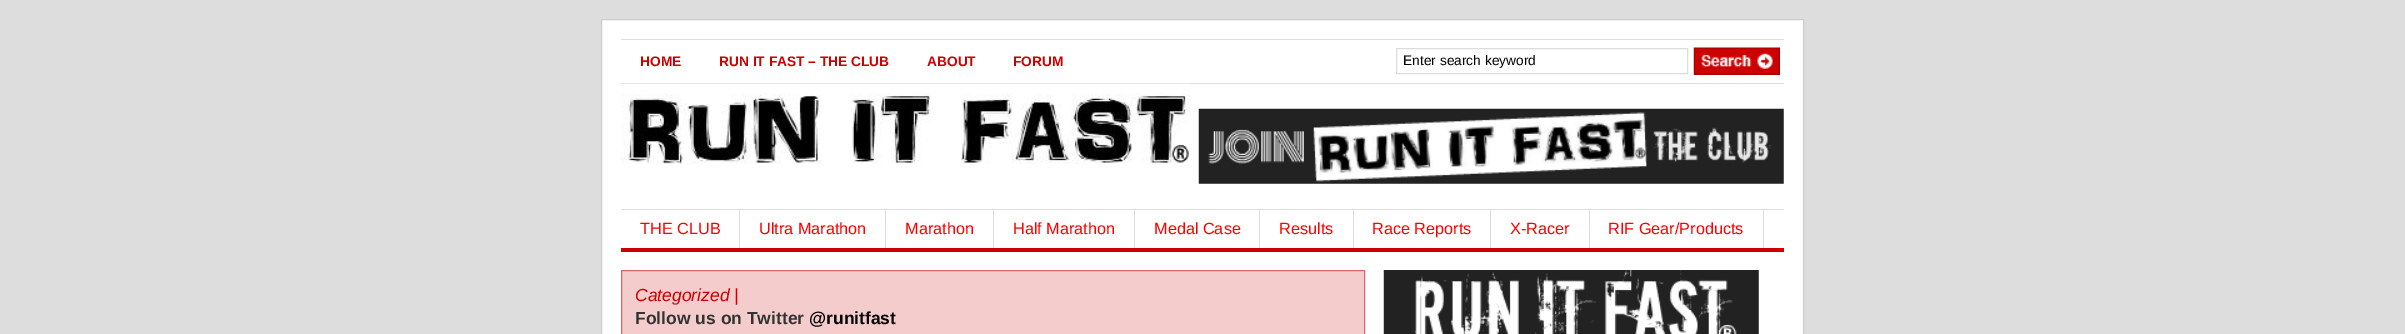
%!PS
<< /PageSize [2405 334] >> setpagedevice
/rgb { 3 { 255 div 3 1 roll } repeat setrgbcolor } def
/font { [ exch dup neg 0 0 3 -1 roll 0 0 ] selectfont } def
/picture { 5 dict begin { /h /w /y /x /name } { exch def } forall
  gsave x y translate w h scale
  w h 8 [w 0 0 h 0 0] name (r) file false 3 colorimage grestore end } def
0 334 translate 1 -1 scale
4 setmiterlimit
221 221 221 rgb
0 0 2405 334 rectfill
255 255 255 rgb
601.5 19.5 moveto 1803.5 19.5 lineto 1803.5 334.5 lineto 601.5 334.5 lineto closepath gsave fill grestore
204 204 204 rgb
stroke
221 221 221 rgb
621 39 1163 1 rectfill
621 83 1163 1 rectfill
1396.5 48.5 291 25 rectstroke
(img/1.rgb) 1693 47 87 28 picture
(img/2.rgb) 621 83 569 81 picture
(img/3.rgb) 1198 108 586 76 picture
[
  [621 209 1163 1 221 221 221]
  [621 248 1163 4 204 0 0]
  [739 210 1 38 221 221 221]
  [885 210 1 38 221 221 221]
  [993 210 1 38 221 221 221]
  [1134 210 1 38 221 221 221]
  [1259 210 1 38 221 221 221]
  [1353 210 1 38 221 221 221]
  [1490 210 1 38 221 221 221]
  [1589 210 1 38 221 221 221]
  [1763 210 1 38 221 221 221]
] { aload pop rgb rectfill } forall
245 204 204 rgb
621.5 270.5 moveto 1364.5 270.5 lineto 1364.5 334.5 lineto 621.5 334.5 lineto closepath gsave fill grestore
224 102 102 rgb
stroke
(img/4.rgb) 1383 270 376 64 picture
/LiberationSans-Bold 13.75 font
204 0 0 rgb
[
  [(HOME) 640 66]
  [(RUN IT FAST – THE CLUB) 719 66]
  [(ABOUT) 927 66]
  [(FORUM) 1013 66]
] { aload pop moveto show } forall
/LiberationSans-Regular 13.75 font
0 0 0 rgb
1403 65 moveto (Enter search keyword) show
/LiberationSans-Regular 16.25 font
255 0 0 rgb
[
  [(THE CLUB) 640 234]
  [(Ultra Marathon) 759 234]
  [(Marathon) 905 234]
  [(Half Marathon) 1013 234]
  [(Medal Case) 1154 234]
  [(Results) 1279 234]
  [(Race Reports) 1372 234]
  [(X-Racer) 1510 234]
  [(RIF Gear/Products) 1608 234]
] { aload pop moveto show } forall
/LiberationSans-Italic 17.5 font
204 0 0 rgb
635 301 moveto (Categorized |) show
/LiberationSans-Bold 17.5 font
51 51 51 rgb
635 324 moveto (Follow us on Twitter) show
0 0 0 rgb
809 324 moveto (@runitfast) show
showpage
